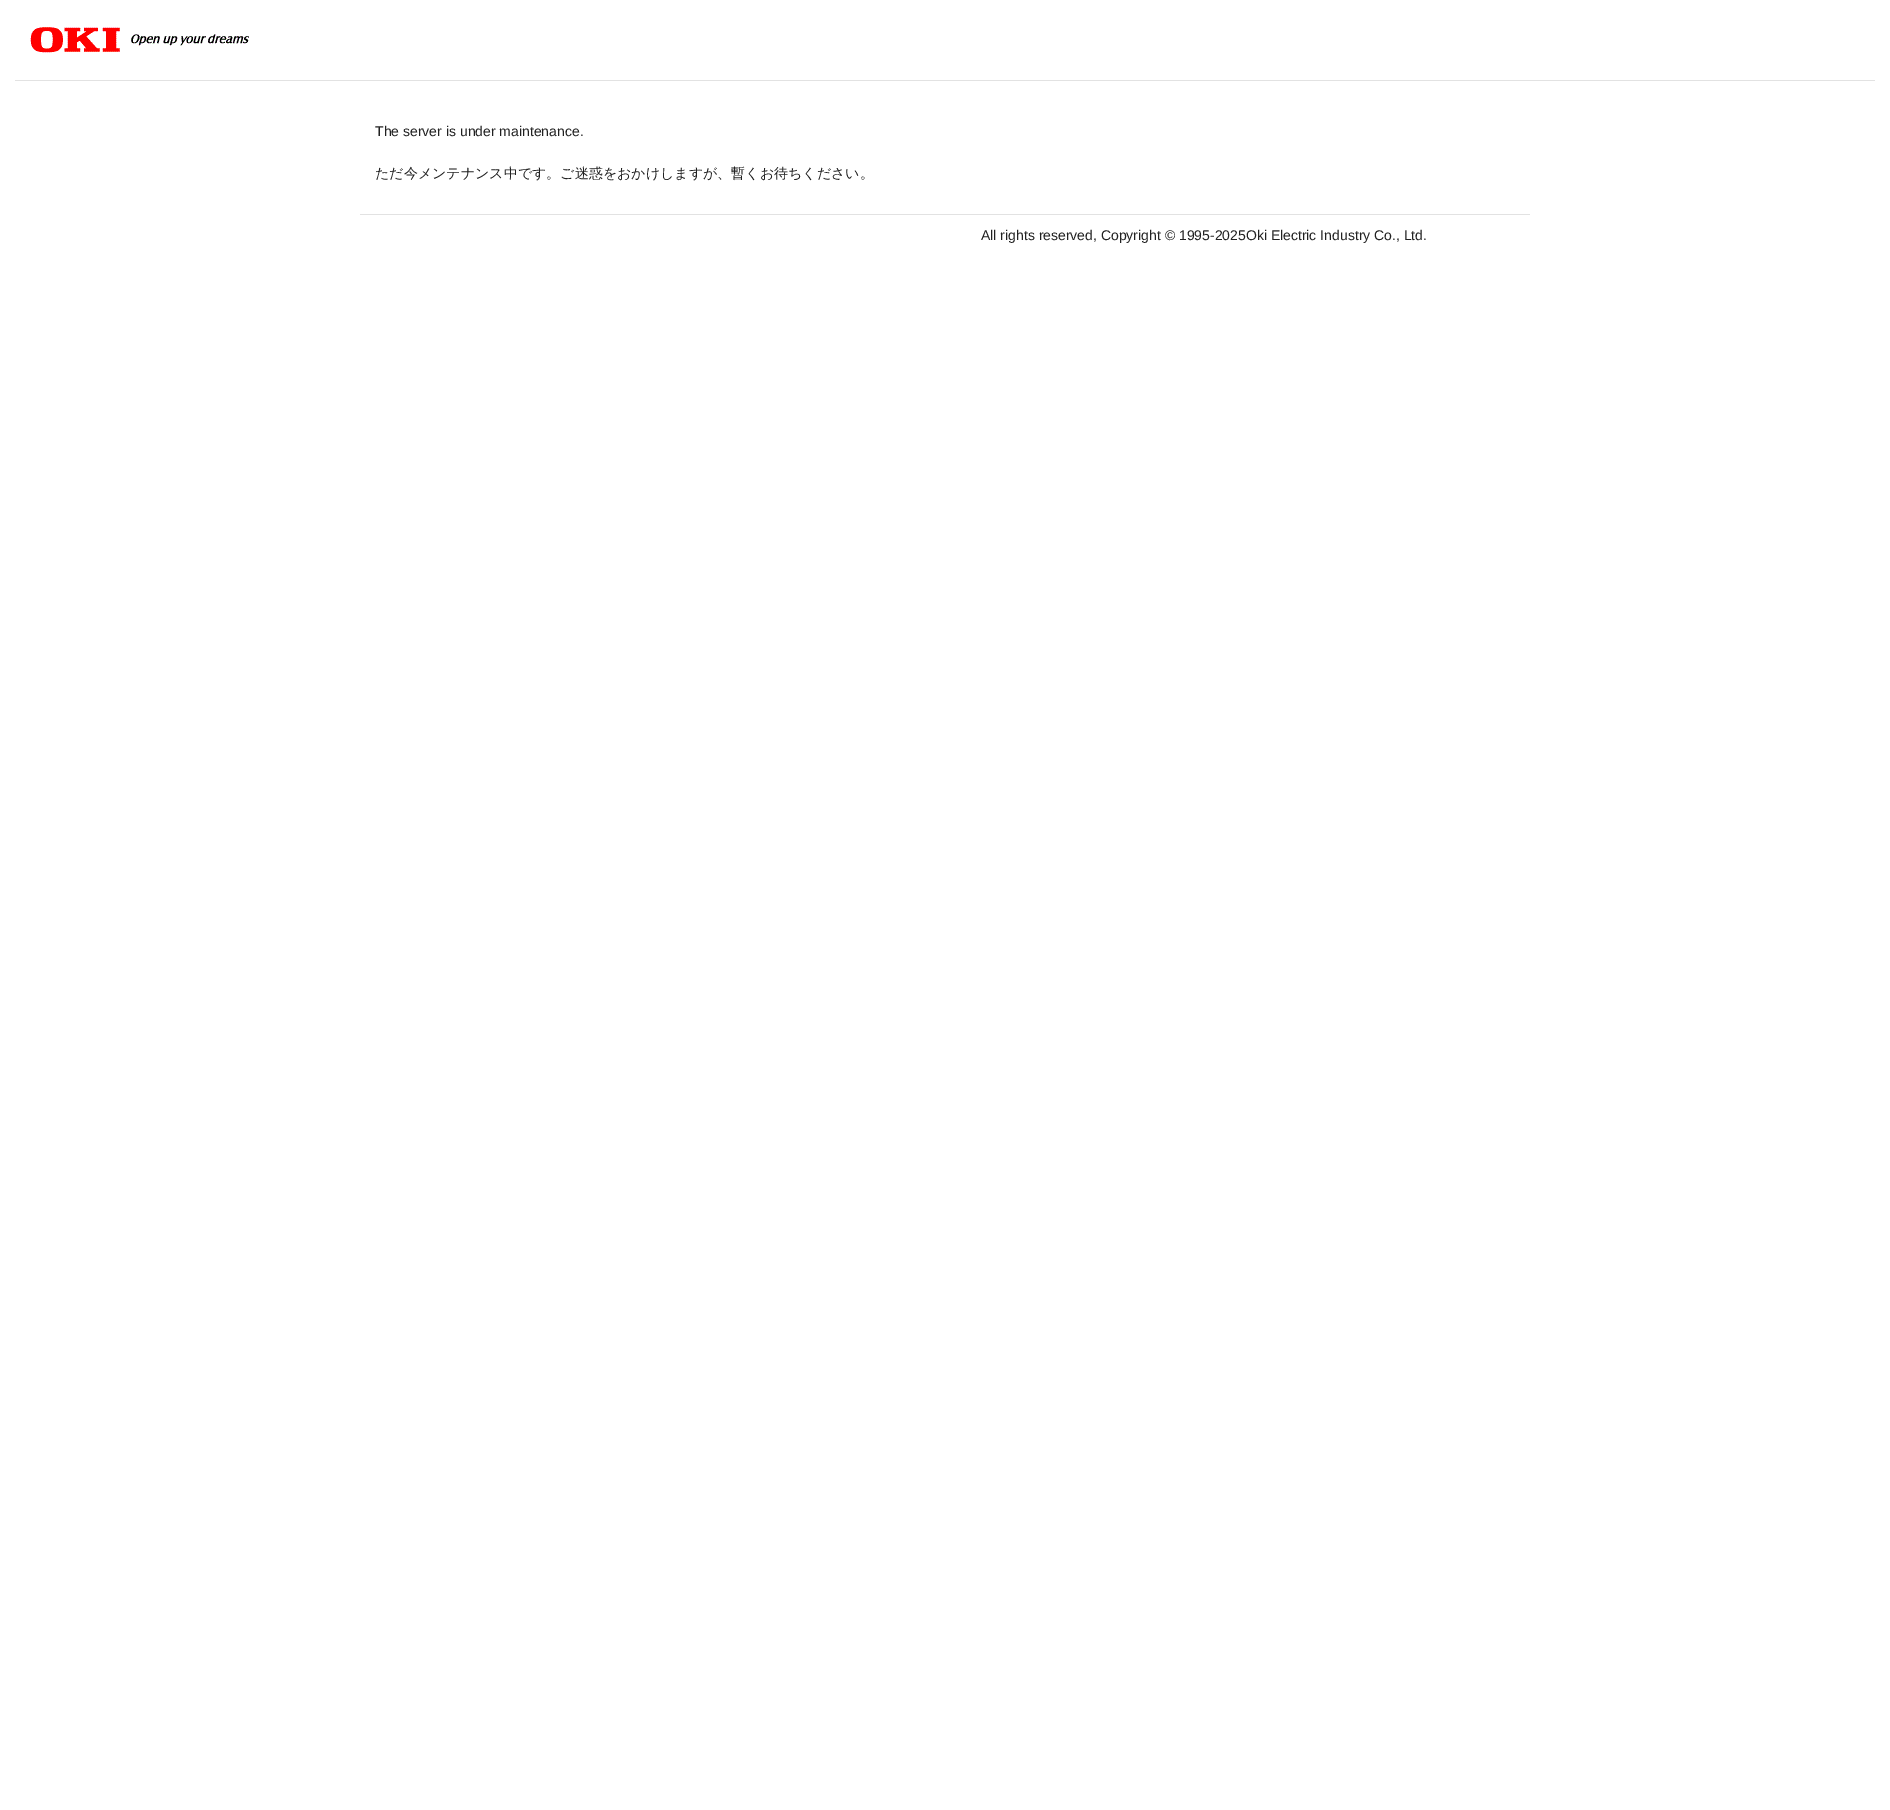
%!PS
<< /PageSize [1890 1810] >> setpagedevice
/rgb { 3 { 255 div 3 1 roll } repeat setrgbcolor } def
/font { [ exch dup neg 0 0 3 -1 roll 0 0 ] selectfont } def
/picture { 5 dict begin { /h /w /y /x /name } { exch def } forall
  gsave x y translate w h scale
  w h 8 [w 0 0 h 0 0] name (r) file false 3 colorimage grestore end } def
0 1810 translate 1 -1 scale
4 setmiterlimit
255 255 255 rgb
0 0 1890 1810 rectfill
226 226 226 rgb
15 80 1860 1 rectfill
(img/1.rgb) 30 27 219 26 picture
360 214 1170 1 rectfill
/LiberationSans-Regular 14 font
33 33 33 rgb
375 136 moveto (The server is under maintenance.) show
/WenQuanYiZenHei-Medium 14 font
375 178 moveto (ただ今メンテナンス中です。ご迷惑をおかけしますが、暫くお待ちください。) show
/LiberationSans-Regular 14 font
981 240 moveto (All rights reserved, Copyright © 1995-2025Oki Electric Industry Co., Ltd.) show
showpage
